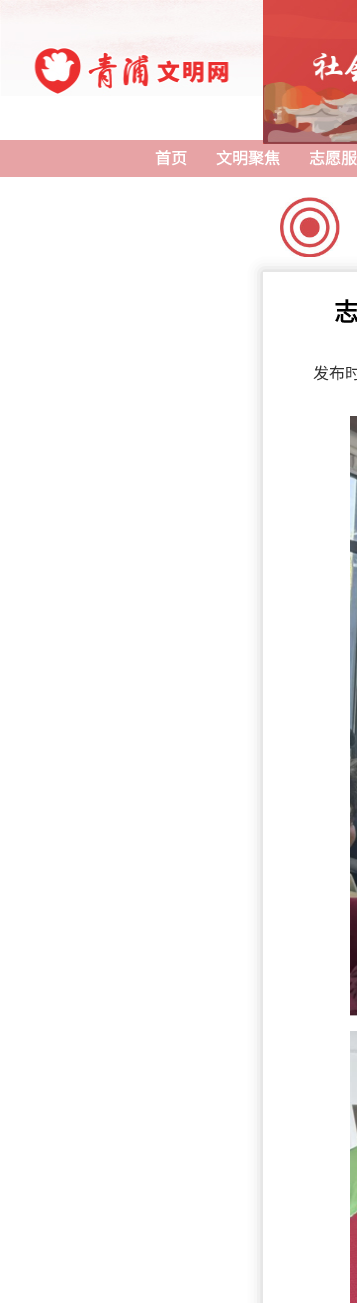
%!PS
<< /PageSize [357 1303] /PageUsesTransparency true >> setpagedevice
/rgb { 3 { 255 div 3 1 roll } repeat setrgbcolor } def
/font { [ exch dup neg 0 0 3 -1 roll 0 0 ] selectfont } def
/alpha { dup .setfillconstantalpha .setstrokeconstantalpha } def
/roundrect { 5 dict begin { /r /h /w /y /x } { exch def } forall
  x r add y moveto x w add y 2 copy h add r arct x w add y h add x 1 index r arct
  x y h add x y r arct x y 2 copy exch w add exch r arct closepath end } def
/shadow { 12 dict begin { /a /b /q /h /w /y /x } { exch def } forall gsave /was 0 def
  9 -2 -9 { dup b mul 4 div /e exch def 1 sub .425 mul 2.718 exch exp 1 add a .99 .min exch div /now exch def
    1 1 now sub 1 was sub div sub alpha /was now def
    w h .min e 2 mul add 0 gt { x e sub y e sub w e 2 mul add h e 2 mul add
      q e add b .6 mul add w h .min 2 div e add .min 0 .max roundrect fill } if } for grestore end } def
/picture { 5 dict begin { /h /w /y /x /name } { exch def } forall
  gsave x y translate w h scale
  w h 8 [w 0 0 h 0 0] name (r) file false 3 colorimage grestore end } def
0 .pushpdf14devicefilter
0 1303 translate 1 -1 scale
4 setmiterlimit
255 255 255 rgb
0 0 357 1303 rectfill
(img/1.rgb) 0 0 263 96 picture
231 163 165 rgb
0 140 357 37 rectfill
(img/2.rgb) 263 0 94 144 picture
gsave
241 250 moveto 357 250 lineto 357 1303 lineto 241 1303 lineto closepath 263 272 moveto 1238 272 lineto 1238 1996 lineto 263 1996 lineto closepath eoclip newpath
204 204 204 rgb
262 271 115 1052 0 6.5 1 shadow
grestore
(img/3.rgb) 280 197 60 60 picture
(img/4.rgb) 350 416 7 600 picture
(img/5.rgb) 350 1031 7 272 picture
/NotoSansCJKSC-Bold 16 font
255 255 255 rgb
[
  [(首页) 155 164]
  [(文明聚焦) 216 164]
  [(志愿服) 309 164]
] { aload pop moveto show } forall
/NotoSansCJKSC-Bold 25 font
0 0 0 rgb
334 321 moveto 1 0 32 (志) widthshow
/NotoSansCJKSC-Regular 16 font
51 51 51 rgb
313 379 moveto (发布时) show
.poppdf14devicefilter showpage
